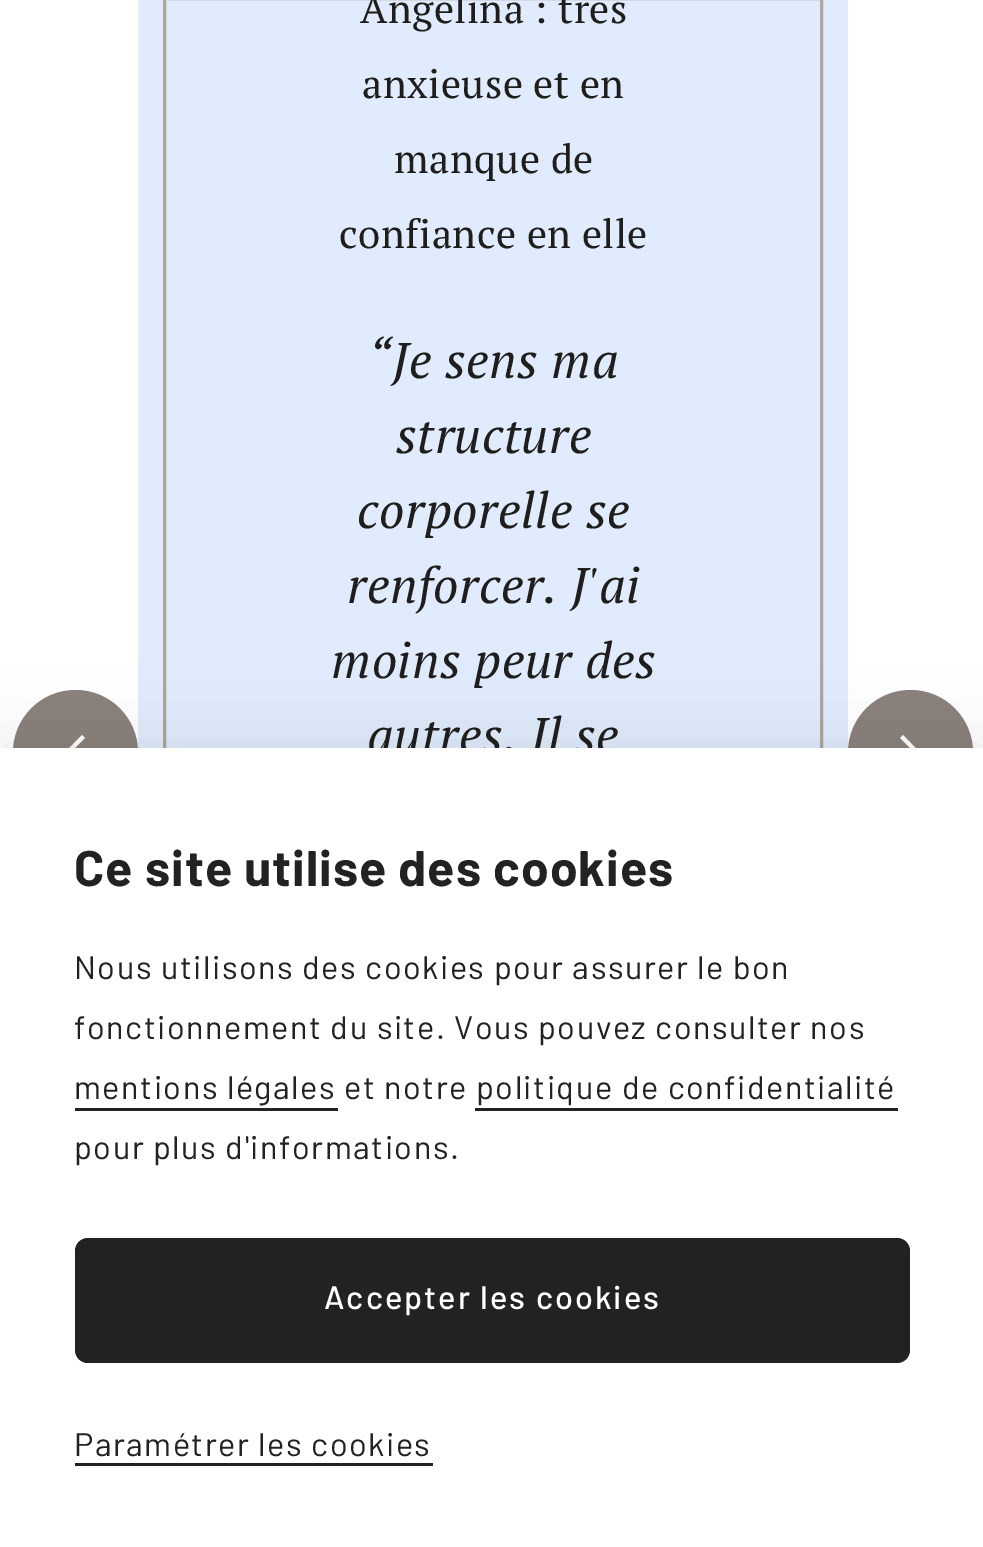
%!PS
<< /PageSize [983 1547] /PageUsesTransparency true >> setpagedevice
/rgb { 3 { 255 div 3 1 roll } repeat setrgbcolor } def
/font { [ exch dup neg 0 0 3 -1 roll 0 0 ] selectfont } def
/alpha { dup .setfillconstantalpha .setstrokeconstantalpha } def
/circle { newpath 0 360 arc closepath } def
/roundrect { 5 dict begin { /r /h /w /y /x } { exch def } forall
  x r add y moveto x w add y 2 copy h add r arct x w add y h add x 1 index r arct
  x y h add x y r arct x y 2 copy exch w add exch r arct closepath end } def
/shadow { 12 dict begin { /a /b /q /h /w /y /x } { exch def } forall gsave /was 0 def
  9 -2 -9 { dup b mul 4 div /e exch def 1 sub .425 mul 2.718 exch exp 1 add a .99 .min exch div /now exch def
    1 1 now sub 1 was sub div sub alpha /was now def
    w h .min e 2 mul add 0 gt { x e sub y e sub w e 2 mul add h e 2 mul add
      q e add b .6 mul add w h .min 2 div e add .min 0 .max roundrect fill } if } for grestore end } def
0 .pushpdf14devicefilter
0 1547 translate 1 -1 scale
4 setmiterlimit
255 255 255 rgb
0 0 983 1547 rectfill
140 130 123 rgb
75.5 752.5 62.5 circle fill
255 255 255 rgb
82 772.5 moveto 65 755 lineto 65 752.5 lineto 82 735 lineto 85 738 lineto 69 754 lineto 85 770 lineto closepath eofill
224 236 253 rgb
138 0 710 748 rectfill
177 166 156 rgb
3 setlinewidth
164.5 -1.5 657 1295 rectstroke
140 130 123 rgb
910.5 752.5 62.5 circle fill
255 255 255 rgb
903 735 moveto 920 752.5 lineto 920 755 lineto 903 772.5 lineto 900 770 lineto 916 754 lineto 900 738 lineto closepath eofill
0 0 0 rgb
0 748 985 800 0 37.5 0.1 shadow
/PTSerif-Regular 40 font
31 30 28 rgb
360 23 moveto 0.5 0 (Angélina : très) ashow
362 98 moveto 0.5 0 (anxieuse et en) ashow
394 173 moveto 0.5 0 (manque de) ashow
339 248 moveto 0.5 0 (confiance en elle) ashow
/PTSerif-Italic 50 font
368 378 moveto 0.5 0 (“Je sens ma) ashow
396 453 moveto 0.5 0 (structure) ashow
357 528 moveto 0.5 0 (corporelle se) ashow
347 603 moveto 0.5 0 (renforcer. J'ai) ashow
331 678 moveto 0.5 0 (moins peur des) ashow
367 753 moveto 0.5 0 (autres. Il se) ashow
255 255 255 rgb
0 748 983 799 rectfill
/Barlow-Bold 50 font
34 34 34 rgb
74 886 moveto 1 0 (Ce site utilise des cookies) ashow
/Barlow-Regular 32.5 font
74 979 moveto 1.5 0 (Nous utilisons des cookies pour assurer le bon) ashow
74 1039 moveto 1.5 0 (fonctionnement du site. Vous pouvez consulter nos) ashow
74 1099 moveto 1.5 0 (mentions légales) ashow
75 1108 263 3 rectfill
344 1099 moveto 1.5 0 (et notre politique de confidentialité) ashow
475 1108 423 3 rectfill
74 1159 moveto 1.5 0 (pour plus d'informations.) ashow
75 1238 835 125 13 roundrect fill
/Barlow-Medium 32.5 font
255 255 255 rgb
324 1309 moveto 2 0 (Accepter les cookies) ashow
/Barlow-Regular 32.5 font
34 34 34 rgb
74 1456 moveto 1.5 0 (Paramétrer les cookies) ashow
75 1463 358 3 rectfill
.poppdf14devicefilter showpage
